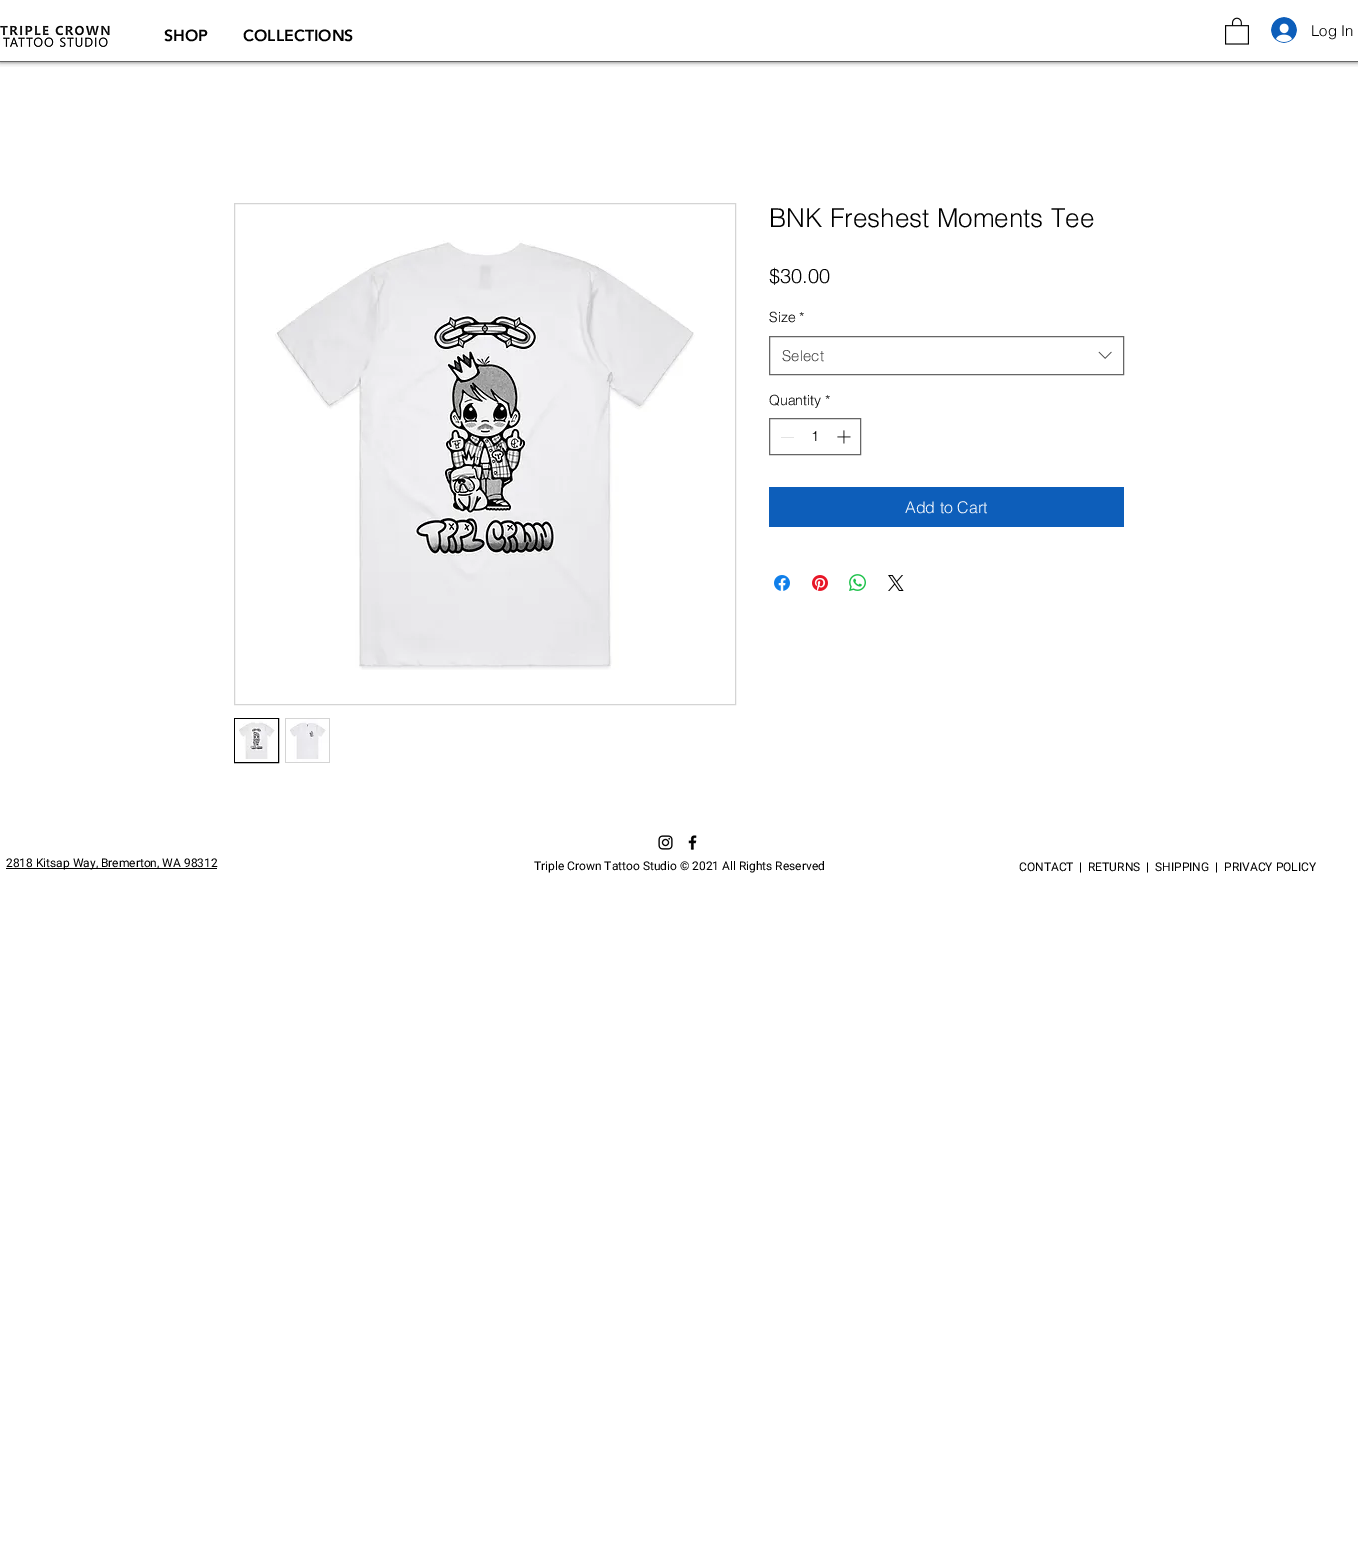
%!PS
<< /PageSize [1358 1554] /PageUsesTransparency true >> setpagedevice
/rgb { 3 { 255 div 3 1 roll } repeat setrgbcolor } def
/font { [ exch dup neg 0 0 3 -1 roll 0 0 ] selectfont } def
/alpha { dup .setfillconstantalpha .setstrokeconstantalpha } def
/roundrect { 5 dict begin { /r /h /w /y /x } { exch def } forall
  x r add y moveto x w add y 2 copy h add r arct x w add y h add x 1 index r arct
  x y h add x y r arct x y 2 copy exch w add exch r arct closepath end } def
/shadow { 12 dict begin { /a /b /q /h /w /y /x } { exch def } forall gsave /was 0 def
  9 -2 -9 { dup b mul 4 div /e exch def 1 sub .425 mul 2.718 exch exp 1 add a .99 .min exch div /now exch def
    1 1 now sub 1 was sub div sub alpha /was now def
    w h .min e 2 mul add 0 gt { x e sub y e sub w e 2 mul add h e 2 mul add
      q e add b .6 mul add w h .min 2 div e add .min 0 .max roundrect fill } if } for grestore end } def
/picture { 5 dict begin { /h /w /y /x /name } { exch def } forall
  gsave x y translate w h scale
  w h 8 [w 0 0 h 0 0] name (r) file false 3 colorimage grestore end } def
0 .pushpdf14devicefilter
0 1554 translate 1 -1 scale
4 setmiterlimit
255 255 255 rgb
0 0 1358 1554 rectfill
gsave
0 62 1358 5 rectclip
0 0 0 rgb
0 0 1358 62 0 2.5 0.6 shadow
grestore
102 102 102 rgb
0 61 1358 1 rectfill
(img/1.rgb) 0 25 110 22 picture
(img/2.rgb) 1225 17 24 28 picture
(img/3.rgb) 1271 17 26 26 picture
212 212 212 rgb
234.5 203.5 501 501 rectstroke
(img/4.rgb) 275 240 420 430 picture
0 0 0 rgb
234.5 718.5 44 44 rectstroke
(img/5.rgb) 235 719 43 43 picture
212 212 212 rgb
285 718 45 45 rectfill
(img/6.rgb) 286 719 43 43 picture
102 102 102 rgb
769.5 336.5 354 38 rectstroke
(img/7.rgb) 1098 351 14 8 picture
769.5 418.5 91 36 rectstroke
227 227 227 rgb
781 437 13 1 rectfill
(img/8.rgb) 837 430 14 14 picture
13 94 186 rgb
769 487 355 40 rectfill
(img/9.rgb) 774 575 16 16 picture
(img/10.rgb) 812 575 16 16 picture
(img/11.rgb) 849 574 17 17 picture
(img/12.rgb) 888 575 16 16 picture
(img/13.rgb) 658 835 15 15 picture
(img/14.rgb) 688 835 9 15 picture
0 0 0 rgb
6 868 211 1 rectfill
/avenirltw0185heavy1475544-Black 16 font
164 41 moveto (SHOP) show
243 41 moveto (COLLECTIONS) show
/helvetica-Light 15 font
1311 36 moveto (Log In) show
/helvetica-Light 26 font
769 227 moveto (BNK Freshest Moments Tee) show
/helvetica-Light 20 font
769 283 moveto ($30.00) show
/helvetica-Light 14 font
769 322 moveto (Size *) show
/helvetica-Light 15 font
68 68 68 rgb
782 361 moveto (Select) show
/helvetica-Light 14 font
0 0 0 rgb
769 405 moveto (Quantity *) show
811 441 moveto (1) show
/helvetica-Light 16 font
255 255 255 rgb
905 513 moveto (Add to Cart) show
/Roboto-Regular 12 font
0 0 0 rgb
[
  [(2818 Kitsap Way, Bremerton, WA 98312) 6 867]
  [(Triple Crown Tattoo Studio © 2021 All Rights Reserved) 534 870]
  [(CONTACT) 1019 871]
  [(|) 1079 871]
  [(RETURNS) 1088 871]
  [(|) 1146 871]
  [(SHIPPING) 1155 871]
  [(|) 1215 871]
  [(PRIVACY POLICY) 1224 871]
] { aload pop moveto show } forall
.poppdf14devicefilter showpage
